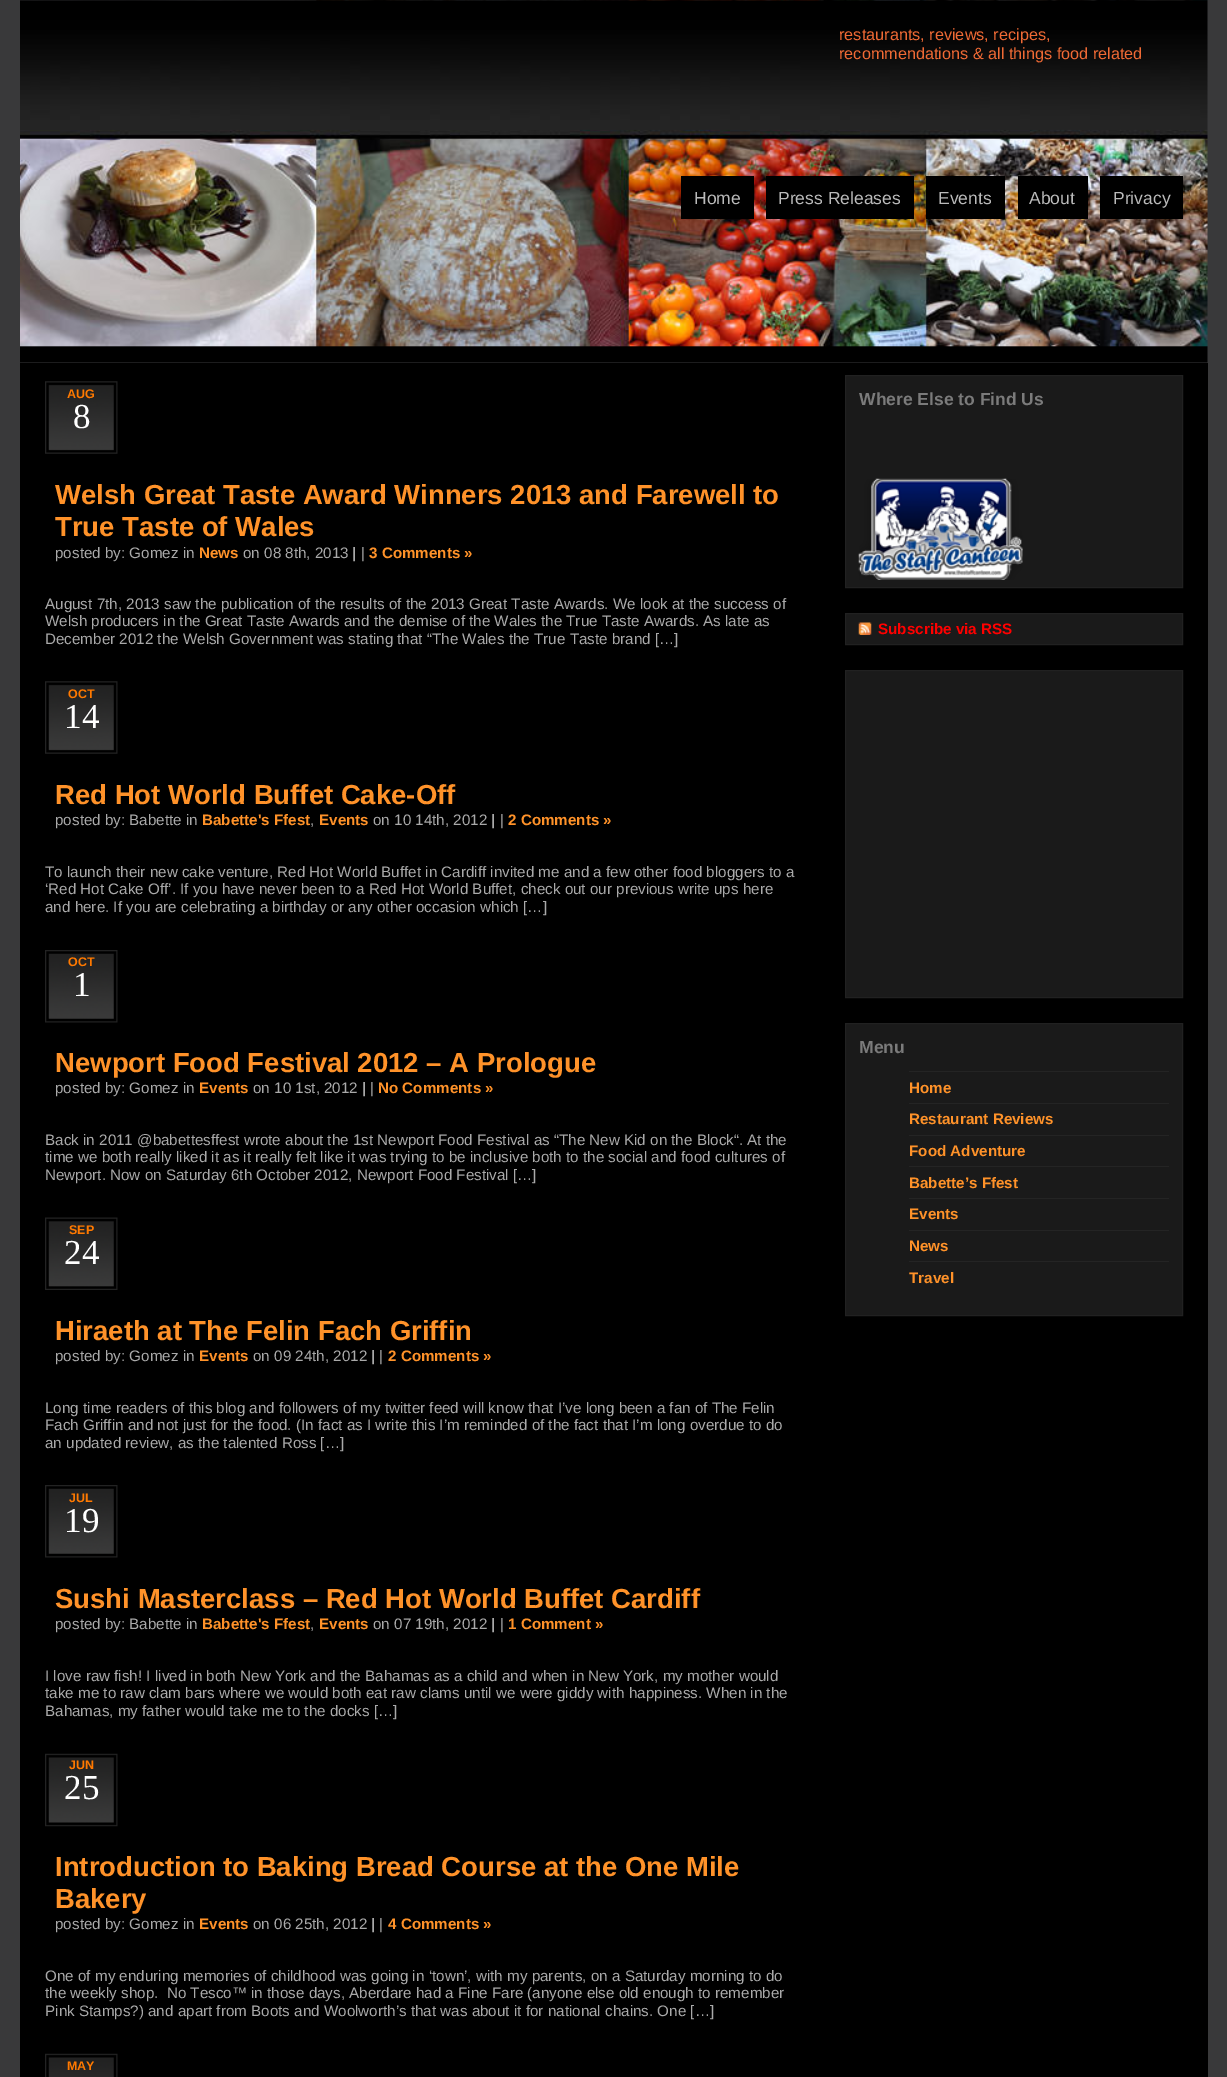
%!PS
<< /PageSize [1227 2077] >> setpagedevice
/rgb { 3 { 255 div 3 1 roll } repeat setrgbcolor } def
/font { [ exch dup neg 0 0 3 -1 roll 0 0 ] selectfont } def
/picture { 5 dict begin { /h /w /y /x /name } { exch def } forall
  gsave x y translate w h scale
  w h 8 [w 0 0 h 0 0] name (r) file false 3 colorimage grestore end } def
0 2077 translate 1 -1 scale
4 setmiterlimit
57 57 58 rgb
0 0 1227 2077 rectfill
(img/1.rgb) 20 0 1188 363 picture
[
  [681 176 73 43 0 0 0]
  [766 176 148 43 0 0 0]
  [926 176 79 43 0 0 0]
  [1018 176 70 43 0 0 0]
  [1100 176 83 43 0 0 0]
  [20 363 1188 1714 0 0 0]
] { aload pop rgb rectfill } forall
(img/2.rgb) 45 381 73 73 picture
(img/2.rgb) 45 681 73 73 picture
(img/3.rgb) 45 950 73 73 picture
(img/4.rgb) 45 1217 73 73 picture
(img/3.rgb) 45 1485 73 73 picture
(img/5.rgb) 45 1753 73 74 picture
(img/6.rgb) 45 2053 73 24 picture
26 26 26 rgb
845.5 375.5 moveto 1182.5 375.5 lineto 1182.5 587.5 lineto 845.5 587.5 lineto closepath gsave fill grestore
33 33 33 rgb
stroke
(img/7.rgb) 858 478 165 102 picture
26 26 26 rgb
845.5 613.5 moveto 1182.5 613.5 lineto 1182.5 644.5 lineto 845.5 644.5 lineto closepath gsave fill grestore
33 33 33 rgb
stroke
(img/8.rgb) 858 622 14 13 picture
26 26 26 rgb
845.5 670.5 moveto 1182.5 670.5 lineto 1182.5 997.5 lineto 845.5 997.5 lineto closepath gsave fill grestore
33 33 33 rgb
stroke
26 26 26 rgb
845.5 1023.5 moveto 1182.5 1023.5 lineto 1182.5 1315.5 lineto 845.5 1315.5 lineto closepath gsave fill grestore
33 33 33 rgb
stroke
[
  [909 1071 260 1 36 36 36]
  [909 1103 260 1 36 36 36]
  [909 1135 260 1 36 36 36]
  [909 1166 260 1 36 36 36]
  [909 1198 260 1 36 36 36]
  [909 1230 260 1 36 36 36]
  [909 1261 260 1 36 36 36]
] { aload pop rgb rectfill } forall
/LiberationSans-Regular 16.25 font
240 106 53 rgb
839 40 moveto (restaurants, reviews, recipes,) show
839 59 moveto (recommendations & all things food related) show
/LiberationSans-Regular 17.5 font
186 186 186 rgb
[
  [(Home) 694 204]
  [(Press Releases) 778 204]
  [(Events) 938 204]
  [(About) 1029 204]
  [(Privacy) 1113 204]
] { aload pop moveto show } forall
/LiberationSans-Bold 12.5 font
255 121 0 rgb
67 398 moveto (AUG) show
/LiberationSerif-Regular 35 font
255 255 255 rgb
73 428 moveto (8) show
/LiberationSans-Bold 27.5 font
255 146 41 rgb
55 504 moveto (Welsh Great Taste Award Winners 2013 and Farewell to) show
55 536 moveto (True Taste of Wales) show
/LiberationSans-Regular 15.2 font
169 169 169 rgb
55 558 moveto (posted by: Gomez in) show
/LiberationSans-Bold 15.2 font
255 146 41 rgb
199 558 moveto (News) show
/LiberationSans-Regular 15.2 font
169 169 169 rgb
243 558 moveto (on 08 8th, 2013) show
/LiberationSans-Bold 15.2 font
352 558 moveto (|) show
/LiberationSans-Regular 15.2 font
361 558 moveto (|) show
/LiberationSans-Bold 15.2 font
255 146 41 rgb
369 558 moveto (3 Comments ») show
/LiberationSans-Regular 15.2 font
169 169 169 rgb
[
  [(August 7th, 2013 saw the publication of the results of the 2013 Great Taste Awards. We look at the success of) 45 609]
  [(Welsh producers in the Great Taste Awards and the demise of the Wales the True Taste Awards. As late as) 45 626]
  [(December 2012 the Welsh Government was stating that “The Wales the True Taste brand […]) 45 644]
] { aload pop moveto show } forall
/LiberationSans-Bold 12.5 font
255 121 0 rgb
68 698 moveto (OCT) show
/LiberationSerif-Regular 35 font
255 255 255 rgb
64 728 moveto (14) show
/LiberationSans-Bold 27.5 font
255 146 41 rgb
55 804 moveto (Red Hot World Buffet Cake-Off) show
/LiberationSans-Regular 15.2 font
169 169 169 rgb
55 825 moveto (posted by: Babette in) show
/LiberationSans-Bold 15.2 font
255 146 41 rgb
202 825 moveto (Babette's Ffest) show
/LiberationSans-Regular 15.2 font
169 169 169 rgb
310 825 moveto (,) show
/LiberationSans-Bold 15.2 font
255 146 41 rgb
319 825 moveto (Events) show
/LiberationSans-Regular 15.2 font
169 169 169 rgb
373 825 moveto (on 10 14th, 2012) show
/LiberationSans-Bold 15.2 font
491 825 moveto (|) show
/LiberationSans-Regular 15.2 font
500 825 moveto (|) show
/LiberationSans-Bold 15.2 font
255 146 41 rgb
508 825 moveto (2 Comments ») show
/LiberationSans-Regular 15.2 font
169 169 169 rgb
[
  [(To launch their new cake venture, Red Hot World Buffet in Cardiff invited me and a few other food bloggers to a) 45 877]
  [(‘Red Hot Cake Off’. If you have never been to a Red Hot World Buffet, check out our previous write ups here) 45 894]
  [(and here. If you are celebrating a birthday or any other occasion which […]) 45 912]
] { aload pop moveto show } forall
/LiberationSans-Bold 12.5 font
255 121 0 rgb
68 966 moveto (OCT) show
/LiberationSerif-Regular 35 font
255 255 255 rgb
73 996 moveto (1) show
/LiberationSans-Bold 27.5 font
255 146 41 rgb
55 1072 moveto (Newport Food Festival 2012 – A Prologue) show
/LiberationSans-Regular 15.2 font
169 169 169 rgb
55 1093 moveto (posted by: Gomez in) show
/LiberationSans-Bold 15.2 font
255 146 41 rgb
199 1093 moveto (Events) show
/LiberationSans-Regular 15.2 font
169 169 169 rgb
253 1093 moveto (on 10 1st, 2012) show
/LiberationSans-Bold 15.2 font
362 1093 moveto (|) show
/LiberationSans-Regular 15.2 font
370 1093 moveto (|) show
/LiberationSans-Bold 15.2 font
255 146 41 rgb
378 1093 moveto (No Comments ») show
/LiberationSans-Regular 15.2 font
169 169 169 rgb
[
  [(Back in 2011 @babettesffest wrote about the 1st Newport Food Festival as “The New Kid on the Block“. At the) 45 1145]
  [(time we both really liked it as it really felt like it was trying to be inclusive both to the social and food cultures of) 45 1162]
  [(Newport. Now on Saturday 6th October 2012, Newport Food Festival […]) 45 1180]
] { aload pop moveto show } forall
/LiberationSans-Bold 12.5 font
255 121 0 rgb
69 1234 moveto (SEP) show
/LiberationSerif-Regular 35 font
255 255 255 rgb
64 1264 moveto (24) show
/LiberationSans-Bold 27.5 font
255 146 41 rgb
55 1340 moveto (Hiraeth at The Felin Fach Griffin) show
/LiberationSans-Regular 15.2 font
169 169 169 rgb
55 1361 moveto (posted by: Gomez in) show
/LiberationSans-Bold 15.2 font
255 146 41 rgb
199 1361 moveto (Events) show
/LiberationSans-Regular 15.2 font
169 169 169 rgb
253 1361 moveto (on 09 24th, 2012) show
/LiberationSans-Bold 15.2 font
371 1361 moveto (|) show
/LiberationSans-Regular 15.2 font
379 1361 moveto (|) show
/LiberationSans-Bold 15.2 font
255 146 41 rgb
388 1361 moveto (2 Comments ») show
/LiberationSans-Regular 15.2 font
169 169 169 rgb
[
  [(Long time readers of this blog and followers of my twitter feed will know that I’ve long been a fan of The Felin) 45 1413]
  [(Fach Griffin and not just for the food. \(In fact as I write this I’m reminded of the fact that I’m long overdue to do) 45 1430]
  [(an updated review, as the talented Ross […]) 45 1448]
] { aload pop moveto show } forall
/LiberationSans-Bold 12.5 font
255 121 0 rgb
69 1502 moveto (JUL) show
/LiberationSerif-Regular 35 font
255 255 255 rgb
64 1532 moveto (19) show
/LiberationSans-Bold 27.5 font
255 146 41 rgb
55 1608 moveto (Sushi Masterclass – Red Hot World Buffet Cardiff) show
/LiberationSans-Regular 15.2 font
169 169 169 rgb
55 1629 moveto (posted by: Babette in) show
/LiberationSans-Bold 15.2 font
255 146 41 rgb
202 1629 moveto (Babette's Ffest) show
/LiberationSans-Regular 15.2 font
169 169 169 rgb
310 1629 moveto (,) show
/LiberationSans-Bold 15.2 font
255 146 41 rgb
319 1629 moveto (Events) show
/LiberationSans-Regular 15.2 font
169 169 169 rgb
373 1629 moveto (on 07 19th, 2012) show
/LiberationSans-Bold 15.2 font
491 1629 moveto (|) show
/LiberationSans-Regular 15.2 font
500 1629 moveto (|) show
/LiberationSans-Bold 15.2 font
255 146 41 rgb
508 1629 moveto (1 Comment ») show
/LiberationSans-Regular 15.2 font
169 169 169 rgb
[
  [(I love raw fish! I lived in both New York and the Bahamas as a child and when in New York, my mother would) 45 1681]
  [(take me to raw clam bars where we would both eat raw clams until we were giddy with happiness. When in the) 45 1698]
  [(Bahamas, my father would take me to the docks […]) 45 1716]
] { aload pop moveto show } forall
/LiberationSans-Bold 12.5 font
255 121 0 rgb
69 1769 moveto (JUN) show
/LiberationSerif-Regular 35 font
255 255 255 rgb
64 1799 moveto (25) show
/LiberationSans-Bold 27.5 font
255 146 41 rgb
55 1876 moveto (Introduction to Baking Bread Course at the One Mile) show
55 1908 moveto (Bakery) show
/LiberationSans-Regular 15.2 font
169 169 169 rgb
55 1929 moveto (posted by: Gomez in) show
/LiberationSans-Bold 15.2 font
255 146 41 rgb
199 1929 moveto (Events) show
/LiberationSans-Regular 15.2 font
169 169 169 rgb
253 1929 moveto (on 06 25th, 2012) show
/LiberationSans-Bold 15.2 font
371 1929 moveto (|) show
/LiberationSans-Regular 15.2 font
379 1929 moveto (|) show
/LiberationSans-Bold 15.2 font
255 146 41 rgb
388 1929 moveto (4 Comments ») show
/LiberationSans-Regular 15.2 font
169 169 169 rgb
[
  [(One of my enduring memories of childhood was going in ‘town’, with my parents, on a Saturday morning to do) 45 1981]
  [(the weekly shop.  No Tesco™ in those days, Aberdare had a Fine Fare \(anyone else old enough to remember) 45 1998]
  [(Pink Stamps?\) and apart from Boots and Woolworth’s that was about it for national chains. One […]) 45 2016]
] { aload pop moveto show } forall
/LiberationSans-Bold 12.5 font
255 121 0 rgb
67 2070 moveto (MAY) show
/LiberationSans-Bold 17.5 font
123 123 123 rgb
859 405 moveto (Where Else to Find Us) show
/LiberationSans-Bold 15.2 font
255 0 0 rgb
878 634 moveto (Subscribe via RSS) show
/LiberationSans-Bold 17.5 font
123 123 123 rgb
859 1053 moveto (Menu) show
/LiberationSans-Bold 15.2 font
255 146 41 rgb
[
  [(Home) 909 1093]
  [(Restaurant Reviews) 909 1124]
  [(Food Adventure) 909 1156]
  [(Babette’s Ffest) 909 1188]
  [(Events) 909 1219]
  [(News) 909 1251]
  [(Travel) 909 1283]
] { aload pop moveto show } forall
showpage
